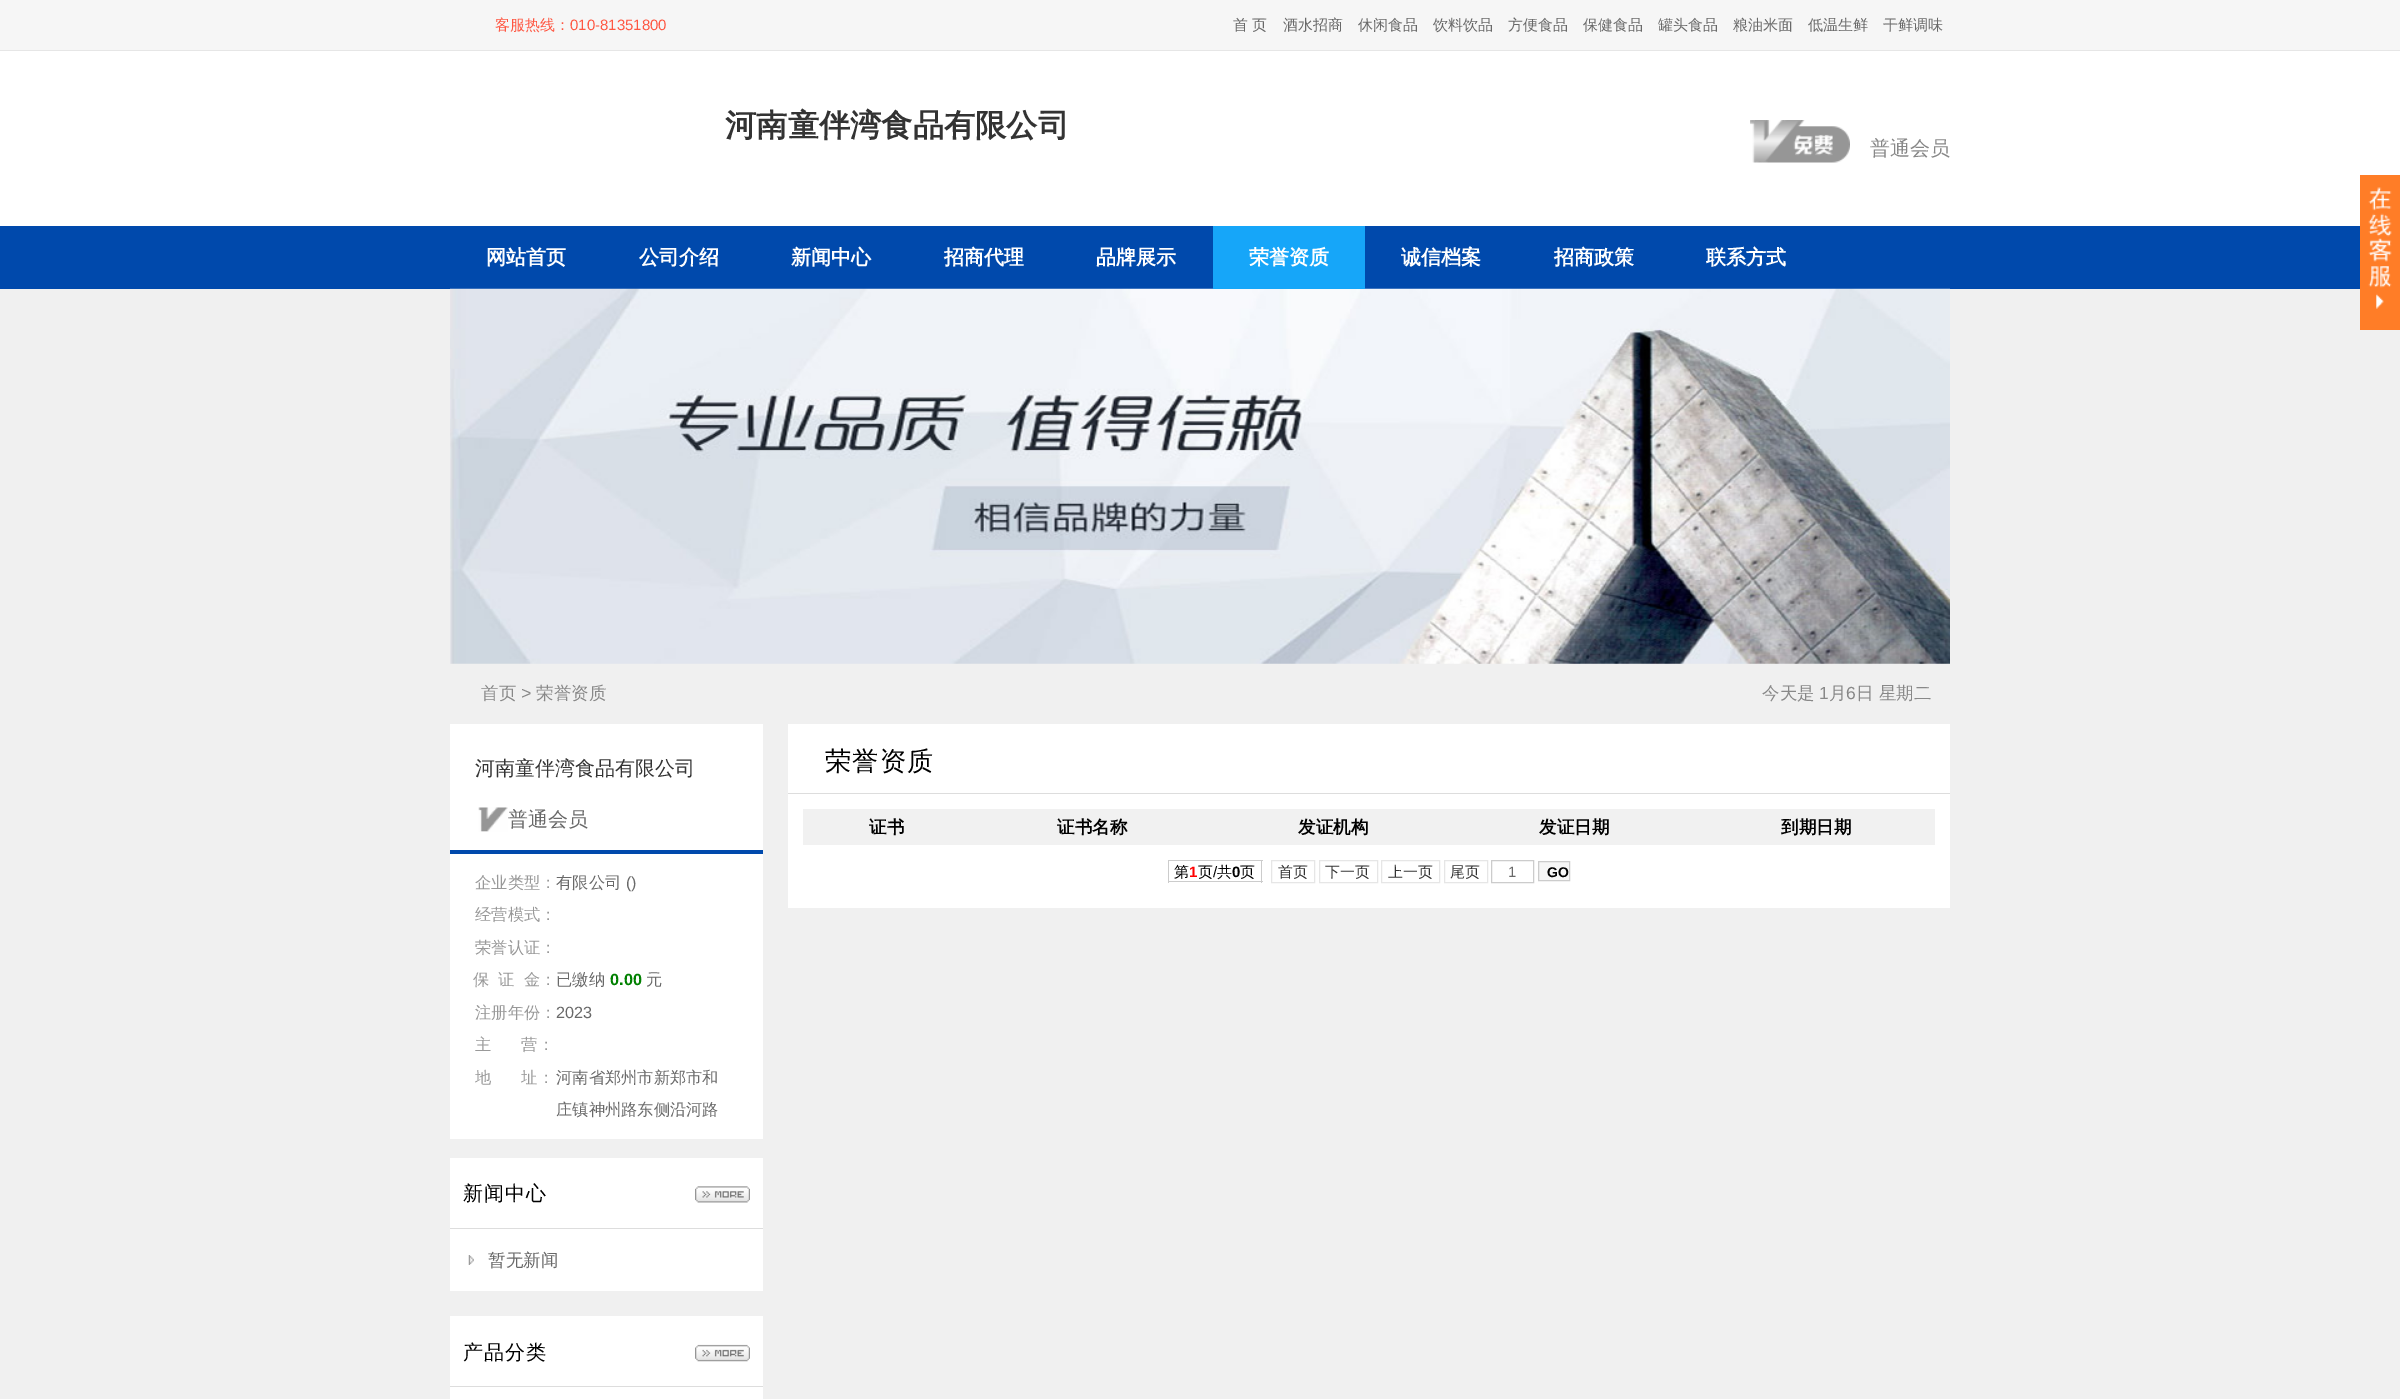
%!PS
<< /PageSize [2400 1399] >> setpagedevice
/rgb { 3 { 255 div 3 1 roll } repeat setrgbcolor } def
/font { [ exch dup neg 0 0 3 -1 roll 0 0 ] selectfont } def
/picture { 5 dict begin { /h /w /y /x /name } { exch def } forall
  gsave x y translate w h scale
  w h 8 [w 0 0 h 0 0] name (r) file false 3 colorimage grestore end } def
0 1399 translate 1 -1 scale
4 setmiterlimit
240 240 240 rgb
0 0 2400 1399 rectfill
[
  [0 0 2400 50 246 246 246]
  [0 50 2400 1 230 230 230]
  [0 51 2400 175 255 255 255]
] { aload pop rgb rectfill } forall
(img/1.rgb) 1750 120 100 43 picture
0 73 172 rgb
0 226 2360 63 rectfill
(img/3.rgb) 450 288 1500 376 picture
22 166 249 rgb
1213 226 152 63 rectfill
(img/2.rgb) 2360 175 40 155 picture
255 255 255 rgb
450 724 313 415 rectfill
0 73 172 rgb
450 850 313 4 rectfill
(img/4.rgb) 478 807 30 25 picture
255 255 255 rgb
450 1158 313 70 rectfill
221 221 221 rgb
450 1228 313 1 rectfill
(img/5.rgb) 695 1186 55 17 picture
255 255 255 rgb
450 1229 313 62 rectfill
(img/6.rgb) 468 1255 6 10 picture
450 1316 313 83 rectfill
221 221 221 rgb
450 1386 313 1 rectfill
(img/7.rgb) 695 1344 55 18 picture
[
  [788 724 1162 69 255 255 255]
  [788 793 1162 1 221 221 221]
  [788 794 1162 114 255 255 255]
  [803 809 1132 36 241 241 241]
  [1168 860 95 1 204 204 204]
  [1168 881 72 1 204 204 204]
  [1168 860 1 23 204 204 204]
  [1261 860 1 23 204 204 204]
  [1240 881 23 1 204 204 204]
] { aload pop rgb rectfill } forall
230 230 230 rgb
1271.5 860.5 43 22 rectstroke
1319.5 860.5 58 22 rectstroke
1381.5 860.5 58 22 rectstroke
1444.5 860.5 43 22 rectstroke
204 204 204 rgb
1491.5 860.5 42 22 rectstroke
246 246 246 rgb
1538.5 861.5 moveto 1569.5 861.5 lineto 1569.5 880.5 lineto 1538.5 880.5 lineto closepath gsave fill grestore
204 204 204 rgb
stroke
/WenQuanYiZenHei-Medium 15 font
255 86 65 rgb
495 30 moveto (客服热线：) show
/LiberationSans-Regular 15 font
570 30 moveto (010-81351800) show
/WenQuanYiZenHei-Medium 15 font
105 105 105 rgb
[
  [(首 页) 1233 30]
  [(酒水招商) 1283 30]
  [(休闲食品) 1358 30]
  [(饮料饮品) 1433 30]
  [(方便食品) 1508 30]
  [(保健食品) 1583 30]
  [(罐头食品) 1658 30]
  [(粮油米面) 1733 30]
  [(低温生鲜) 1808 30]
  [(干鲜调味) 1883 30]
] { aload pop moveto show } forall
/WenQuanYiZenHei-Bold 31.25 font
51 51 51 rgb
725 136 moveto (河南童伴湾食品有限公司) show
/WenQuanYiZenHei-Medium 20 font
136 136 136 rgb
1870 155 moveto (普通会员) show
/WenQuanYiZenHei-Bold 20 font
255 255 255 rgb
[
  [(网站首页) 486 264]
  [(公司介绍) 639 264]
  [(新闻中心) 791 264]
  [(招商代理) 944 264]
  [(品牌展示) 1096 264]
  [(荣誉资质) 1249 264]
  [(诚信档案) 1401 264]
  [(招商政策) 1554 264]
  [(联系方式) 1706 264]
] { aload pop moveto show } forall
/WenQuanYiZenHei-Medium 17.5 font
136 136 136 rgb
481 699 moveto (首页) show
/LiberationSans-Italic 17.5 font
521 699 moveto (>) show
/WenQuanYiZenHei-Medium 17.5 font
536 699 moveto (荣誉资质) show
1762 699 moveto (今天是) show
/LiberationSans-Regular 17.5 font
1819 699 moveto (1) show
/WenQuanYiZenHei-Medium 17.5 font
1829 699 moveto (月) show
/LiberationSans-Regular 17.5 font
1846 699 moveto (6) show
/WenQuanYiZenHei-Medium 17.5 font
1856 699 moveto (日 星期二) show
/WenQuanYiZenHei-Medium 20 font
51 51 51 rgb
475 775 moveto (河南童伴湾食品有限公司) show
105 105 105 rgb
508 826 moveto (普通会员) show
/WenQuanYiZenHei-Medium 16.25 font
153 153 153 rgb
475 888 moveto (企业类型：) show
105 105 105 rgb
556 888 moveto (有限公司) show
/LiberationSans-Regular 16.25 font
626 888 moveto (\(\)) show
/WenQuanYiZenHei-Medium 16.25 font
153 153 153 rgb
[
  [(经营模式：) 475 920]
  [(荣誉认证：) 475 953]
  [(保) 473 985]
  [(证) 498 985]
  [(金：) 524 985]
] { aload pop moveto show } forall
105 105 105 rgb
556 985 moveto (已缴纳) show
/LiberationSans-Bold 16.25 font
0 128 0 rgb
610 985 moveto (0.00) show
/WenQuanYiZenHei-Medium 16.25 font
105 105 105 rgb
646 985 moveto (元) show
153 153 153 rgb
475 1018 moveto (注册年份：) show
/LiberationSans-Regular 16.25 font
105 105 105 rgb
556 1018 moveto (2023) show
/WenQuanYiZenHei-Medium 16.25 font
153 153 153 rgb
475 1050 moveto 1 0 (主) ashow
521 1050 moveto 1 0 (营：) ashow
475 1083 moveto 1 0 (地) ashow
521 1083 moveto 1 0 (址：) ashow
105 105 105 rgb
556 1083 moveto (河南省郑州市新郑市和) show
556 1115 moveto (庄镇神州路东侧沿河路) show
/WenQuanYiZenHei-Medium 20 font
0 0 0 rgb
463 1200 moveto 1 0 (新闻中心) ashow
/WenQuanYiZenHei-Medium 17.5 font
105 105 105 rgb
488 1266 moveto (暂无新闻) show
/WenQuanYiZenHei-Medium 20 font
0 0 0 rgb
463 1359 moveto 1 0 (产品分类) ashow
/WenQuanYiZenHei-Medium 26.25 font
825 770 moveto 1 0 (荣誉资质) ashow
/WenQuanYiZenHei-Bold 17.5 font
[
  [(证书) 869 833]
  [(证书名称) 1057 833]
  [(发证机构) 1298 833]
  [(发证日期) 1539 833]
  [(到期日期) 1781 833]
] { aload pop moveto show } forall
/WenQuanYiZenHei-Medium 15 font
1174 877 moveto (第) show
/LiberationSans-Bold 15 font
255 0 0 rgb
1189 877 moveto (1) show
/WenQuanYiZenHei-Medium 15 font
0 0 0 rgb
1198 877 moveto (页) show
/LiberationSans-Regular 15 font
1213 877 moveto (/) show
/WenQuanYiZenHei-Medium 15 font
1217 877 moveto (共) show
/LiberationSans-Bold 15 font
1232 877 moveto (0) show
/WenQuanYiZenHei-Medium 15 font
1240 877 moveto (页) show
51 51 51 rgb
[
  [(首页) 1278 877]
  [(下一页) 1325 877]
  [(上一页) 1388 877]
  [(尾页) 1450 877]
] { aload pop moveto show } forall
/LiberationSans-Regular 15 font
105 105 105 rgb
1508 877 moveto (1) show
/LiberationSans-Bold 14 font
0 0 0 rgb
1547 877 moveto (GO) show
showpage
